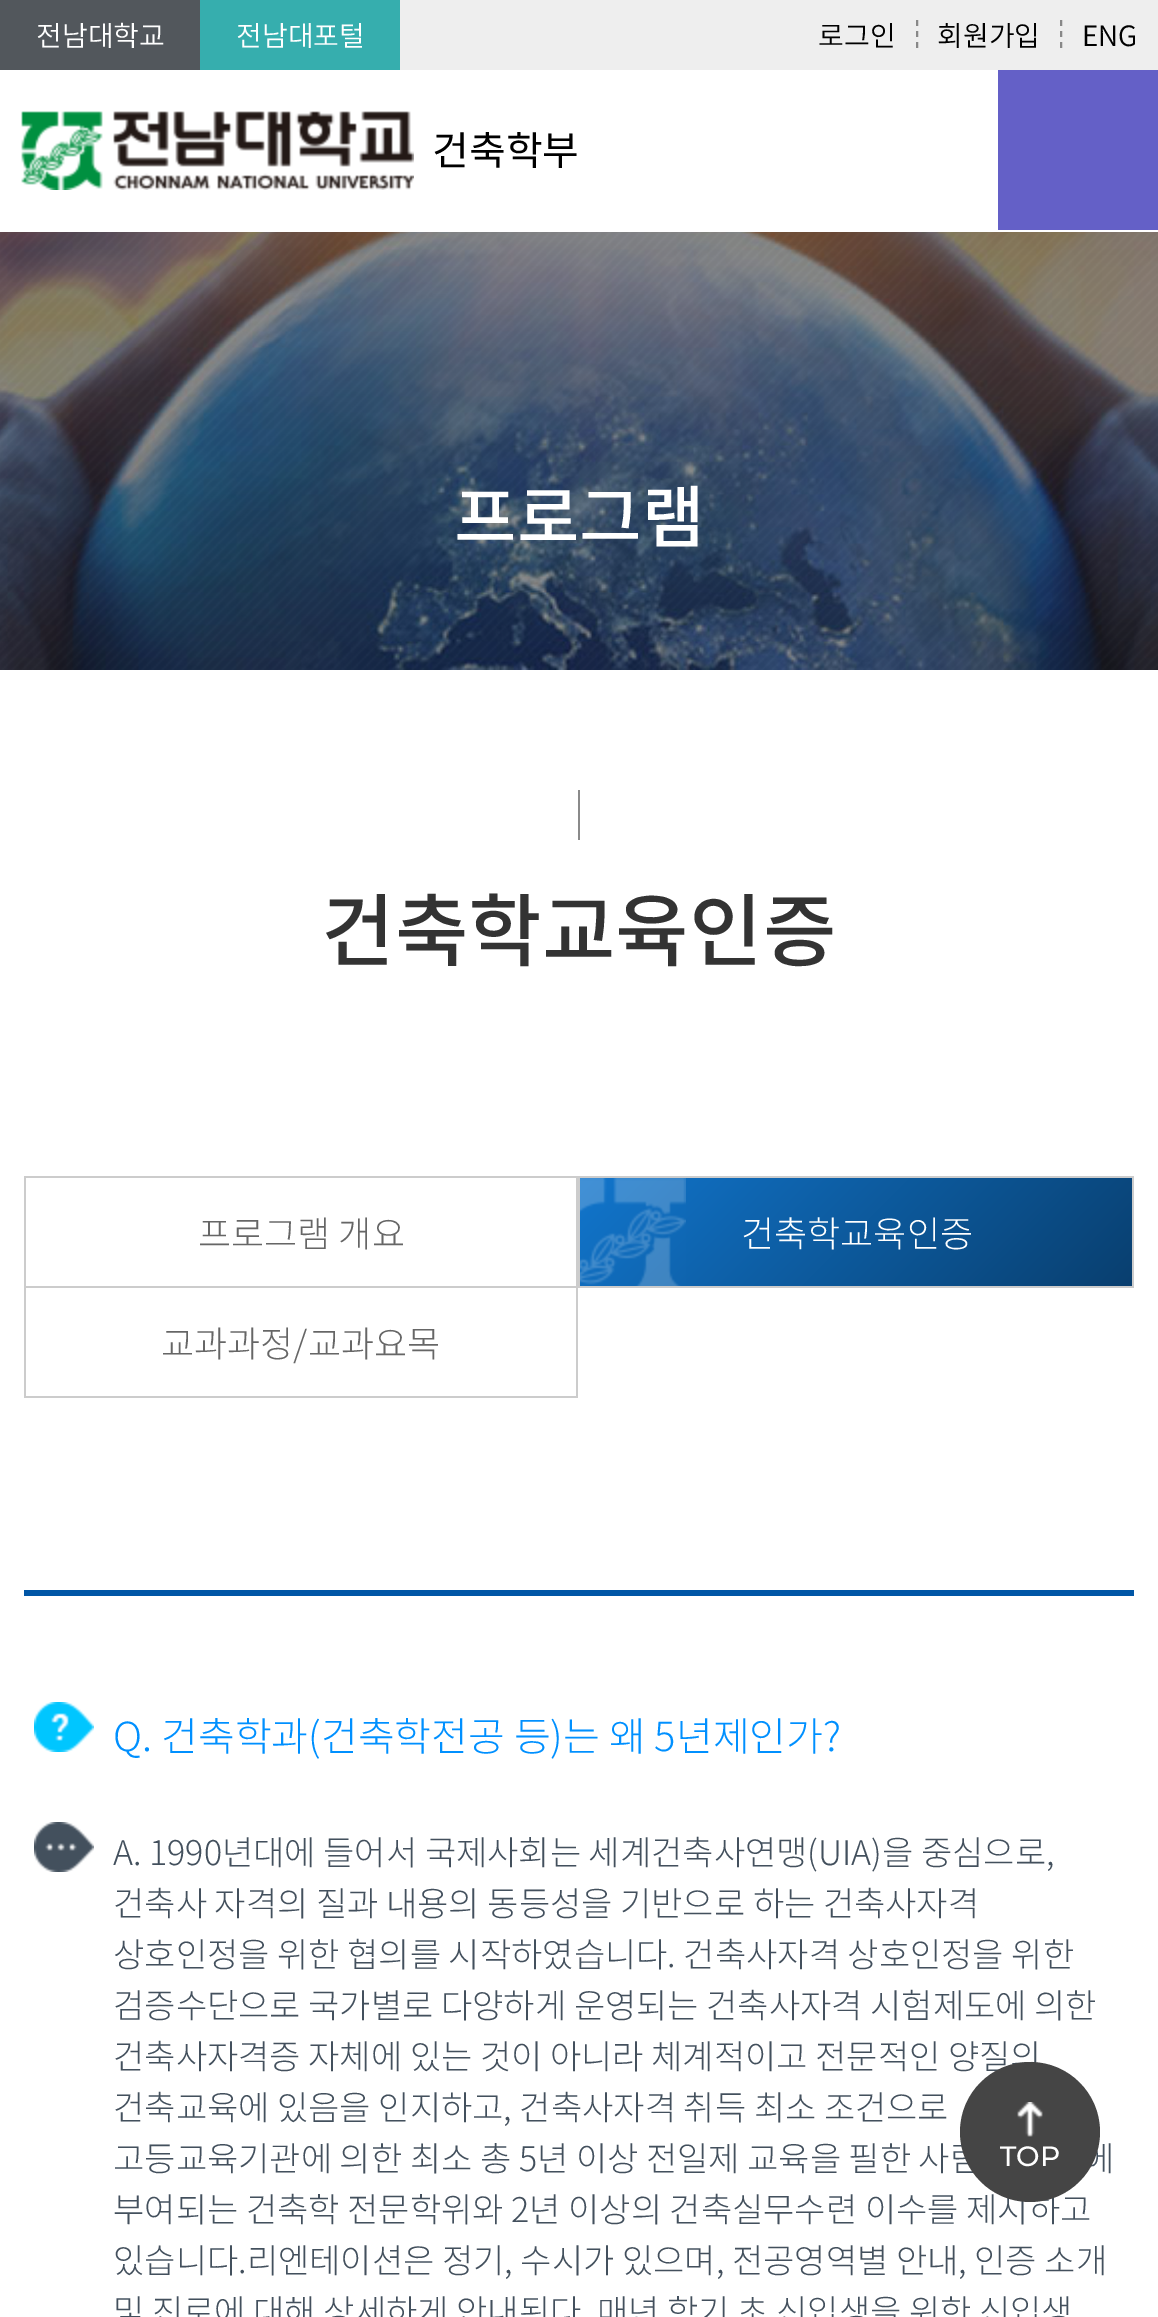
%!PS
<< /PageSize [1158 2317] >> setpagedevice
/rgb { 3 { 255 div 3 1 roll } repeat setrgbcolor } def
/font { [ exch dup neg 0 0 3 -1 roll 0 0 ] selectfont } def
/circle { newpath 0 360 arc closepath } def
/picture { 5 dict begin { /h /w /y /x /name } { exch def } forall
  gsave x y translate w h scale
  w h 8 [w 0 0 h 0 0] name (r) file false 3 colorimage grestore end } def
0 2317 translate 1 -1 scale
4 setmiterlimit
255 255 255 rgb
0 0 1158 2317 rectfill
[
  [400 0 758 70 238 238 238]
  [0 0 200 70 82 87 92]
  [200 0 200 70 54 174 174]
] { aload pop rgb rectfill } forall
136 136 136 rgb
2 setlinewidth
917 20 moveto 917 26 lineto 917 31 moveto 917 37 lineto 917 42 moveto 917 48 lineto stroke
1061 20 moveto 1061 26 lineto 1061 31 moveto 1061 37 lineto 1061 42 moveto 1061 48 lineto stroke
(img/1.rgb) 21 111 393 79 picture
100 96 199 rgb
998 70 160 160 rectfill
(img/2.rgb) 0 232 1158 438 picture
(img/3.rgb) 0 232 1158 438 picture
[
  [578 790 2 50 138 138 138]
  [24 1176 1110 2 204 204 204]
  [576 1178 2 220 204 204 204]
  [24 1286 554 2 204 204 204]
  [24 1178 2 110 204 204 204]
] { aload pop rgb rectfill } forall
gsave 580 1178 moveto 1132 1178 lineto 1132 1286 lineto 580 1286 lineto closepath clip newpath
<< /ShadingType 2 /ColorSpace /DeviceRGB /Coords [690 1067 1023 1400] /Extend [true true] /Function << /FunctionType 2 /Domain [0 1] /C0 [0.067 0.459 0.8] /C1 [0.035 0.247 0.431] /N 1 >> >> shfill grestore
(img/4.rgb) 580 1178 106 108 picture
[
  [1132 1178 2 110 204 204 204]
  [578 1286 556 2 204 204 204]
  [578 1178 2 110 204 204 204]
  [24 1396 554 2 204 204 204]
  [24 1288 2 110 204 204 204]
  [24 1590 1110 6 0 86 166]
] { aload pop rgb rectfill } forall
(img/5.rgb) 34 1702 60 50 picture
(img/6.rgb) 34 1822 60 50 picture
/NotoSansKR-Light 28 font
255 255 255 rgb
36 46 moveto (전남대학교) show
236 46 moveto (전남대포털) show
0 0 0 rgb
[
  [(로그인) 818 46]
  [(회원가입) 937 46]
  [(ENG) 1082 46]
] { aload pop moveto show } forall
/NotoSansKR-Regular 40 font
432 165 moveto (건축학부) show
/NotoSansKR-Medium 68 font
255 255 255 rgb
454 542 moveto (프로그램) show
/NotoSansKR-Medium 80 font
51 51 51 rgb
321 960 moveto (건축학교육인증) show
/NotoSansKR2-Light 36 font
102 102 102 rgb
198 1247 moveto (프로그램 개요) show
255 255 255 rgb
741 1247 moveto (건축학교육인증) show
102 102 102 rgb
161 1357 moveto (교과과정/교과요목) show
/NotoSansKR2-Light 40 font
0 144 255 rgb
113 1751 moveto (Q. 건축학과\(건축학전공 등\)는 왜 5년제인가?) show
/NotoSansKR2-Light 34 font
67 80 93 rgb
[
  [(A. 1990년대에 들어서 국제사회는 세계건축사연맹\(UIA\)을 중심으로,) 113 1865]
  [(건축사 자격의 질과 내용의 동등성을 기반으로 하는 건축사자격) 113 1916]
  [(상호인정을 위한 협의를 시작하였습니다. 건축사자격 상호인정을 위한) 113 1967]
  [(검증수단으로 국가별로 다양하게 운영되는 건축사자격 시험제도에 의한) 113 2018]
  [(건축사자격증 자체에 있는 것이 아니라 체계적이고 전문적인 양질의) 113 2069]
  [(건축교육에 있음을 인지하고, 건축사자격 취득 최소 조건으로) 113 2120]
  [(고등교육기관에 의한 최소 총 5년 이상 전일제 교육을 필한 사람) 113 2171]
  [(에) 1083 2171]
  [(부여되는 건축학 전문학위와 2년 이상의 건축실무수련 이수를 제시하고) 113 2222]
  [(있습니다.리엔테이션은 정기, 수시가 있으며, 전공영역별 안내, 인증 소개) 113 2273]
  [(및 진로에 대해 상세하게 안내된다. 매년 학기 초 신입생을 위한 신입생) 113 2324]
] { aload pop moveto show } forall
69 69 69 rgb
1030 2132 70 circle fill
(img/7.rgb) 1017 2102 26 35 picture
/Montserrat-Medium 28 font
255 255 255 rgb
1000 2166 moveto (TOP) show
showpage
